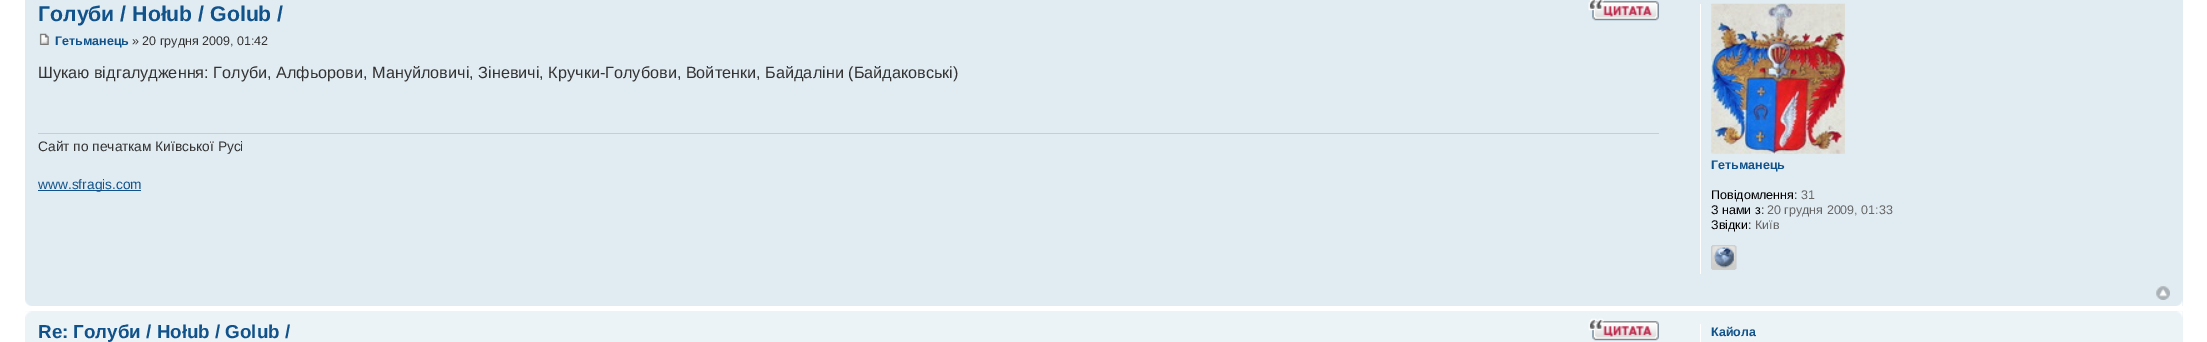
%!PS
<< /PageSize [2207 342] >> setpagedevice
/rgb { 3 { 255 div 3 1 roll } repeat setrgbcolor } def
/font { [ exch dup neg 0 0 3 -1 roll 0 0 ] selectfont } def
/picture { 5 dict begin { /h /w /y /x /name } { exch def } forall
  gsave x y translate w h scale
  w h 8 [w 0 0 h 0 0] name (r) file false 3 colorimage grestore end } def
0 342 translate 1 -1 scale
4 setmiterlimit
255 255 255 rgb
0 0 2207 342 rectfill
225 235 242 rgb
25 0 2158 306 rectfill
(img/1.rgb) 1588 0 71 21 picture
(img/2.rgb) 1588 0 71 21 picture
(img/3.rgb) 39 33 10 12 picture
[
  [38 133 1621 1 204 204 204]
  [38 190 103 1 16 82 137]
  [1700 4 1 270 255 255 255]
] { aload pop rgb rectfill } forall
(img/4.rgb) 1711 3 134 151 picture
(img/5.rgb) 1711 245 26 25 picture
(img/6.rgb) 1711 245 26 25 picture
(img/7.rgb) 2156 286 14 14 picture
(img/8.rgb) 25 300 6 6 picture
(img/9.rgb) 2176 300 7 6 picture
236 243 247 rgb
25 311 2158 31 rectfill
(img/10.rgb) 25 311 6 6 picture
(img/11.rgb) 2177 311 6 6 picture
(img/12.rgb) 1588 318 71 23 picture
(img/13.rgb) 1589 319 70 22 picture
255 255 255 rgb
1700 324 1 18 rectfill
/LiberationSans-Bold 21.25 font
16 82 137 rgb
38 21 moveto (Голуби / Hołub / Golub /) show
/LiberationSans-Bold 12.5 font
55 45 moveto (Гетьманець) show
/LiberationSans-Regular 12.5 font
51 51 51 rgb
132 45 moveto (» 20 грудня 2009, 01:42) show
/LiberationSans-Regular 16.25 font
38 78 moveto (Шукаю відгалудження: Голуби, Алфьорови, Мануйловичі, Зіневичі, Кручки-Голубови, Войтенки, Байдаліни \(Байдаковські\)) show
/LiberationSans-Regular 13.75 font
38 151 moveto (Сайт по печаткам Київської Русі) show
16 82 137 rgb
38 189 moveto (www.sfragis.com) show
/LiberationSans-Bold 12.5 font
1711 169 moveto (Гетьманець) show
/LiberationSans-Regular 12.5 font
0 0 0 rgb
1711 199 moveto (Повідомлення:) show
102 102 102 rgb
1801 199 moveto (31) show
0 0 0 rgb
1711 214 moveto (З нами з:) show
102 102 102 rgb
1767 214 moveto (20 грудня 2009, 01:33) show
0 0 0 rgb
1711 229 moveto (Звідки:) show
102 102 102 rgb
1755 229 moveto (Київ) show
/LiberationSans-Bold 18.75 font
16 82 137 rgb
38 338 moveto (Re: Голуби / Hołub / Golub /) show
/LiberationSans-Bold 12.5 font
1711 336 moveto (Кайола) show
showpage
